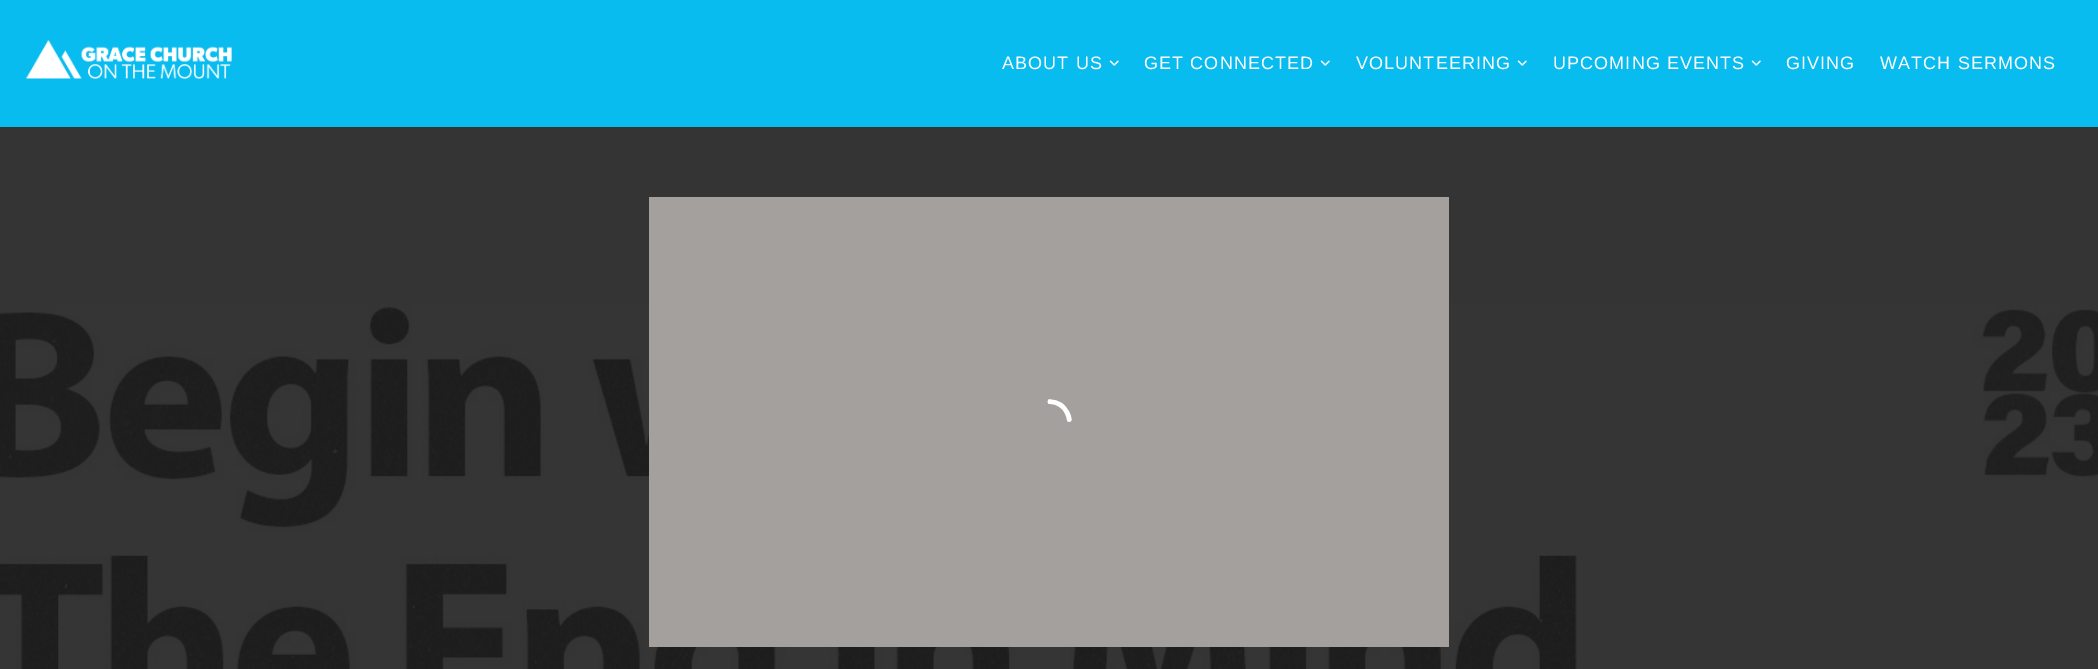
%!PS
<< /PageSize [2098 669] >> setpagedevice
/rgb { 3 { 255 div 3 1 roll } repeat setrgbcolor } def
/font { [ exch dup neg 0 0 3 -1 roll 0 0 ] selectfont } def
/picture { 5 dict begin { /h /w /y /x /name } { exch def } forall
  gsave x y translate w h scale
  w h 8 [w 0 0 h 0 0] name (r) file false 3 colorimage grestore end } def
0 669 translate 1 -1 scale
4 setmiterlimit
52 52 52 rgb
0 0 2098 669 rectfill
8 188 239 rgb
0 0 2098 127 rectfill
(img/1.rgb) 25 40 207 39 picture
(img/2.rgb) 1109 60 10 6 picture
(img/2.rgb) 1320 60 10 6 picture
(img/2.rgb) 1517 60 10 6 picture
(img/2.rgb) 1751 60 10 6 picture
(img/4.rgb) 0 303 2098 366 picture
(img/3.rgb) 649 197 800 450 picture
/LiberationSans-Regular 18 font
255 255 255 rgb
1002 69 moveto 1.1 0 (ABOUT US) ashow
1144 69 moveto 1.1 0 (GET CONNECTED) ashow
1356 69 moveto 1.1 0 (VOLUNTEERING) ashow
1553 69 moveto 1.1 0 (UPCOMING EVENTS) ashow
1786 69 moveto 1.1 0 (GIVING) ashow
1880 69 moveto 1.1 0 (WATCH SERMONS) ashow
showpage
